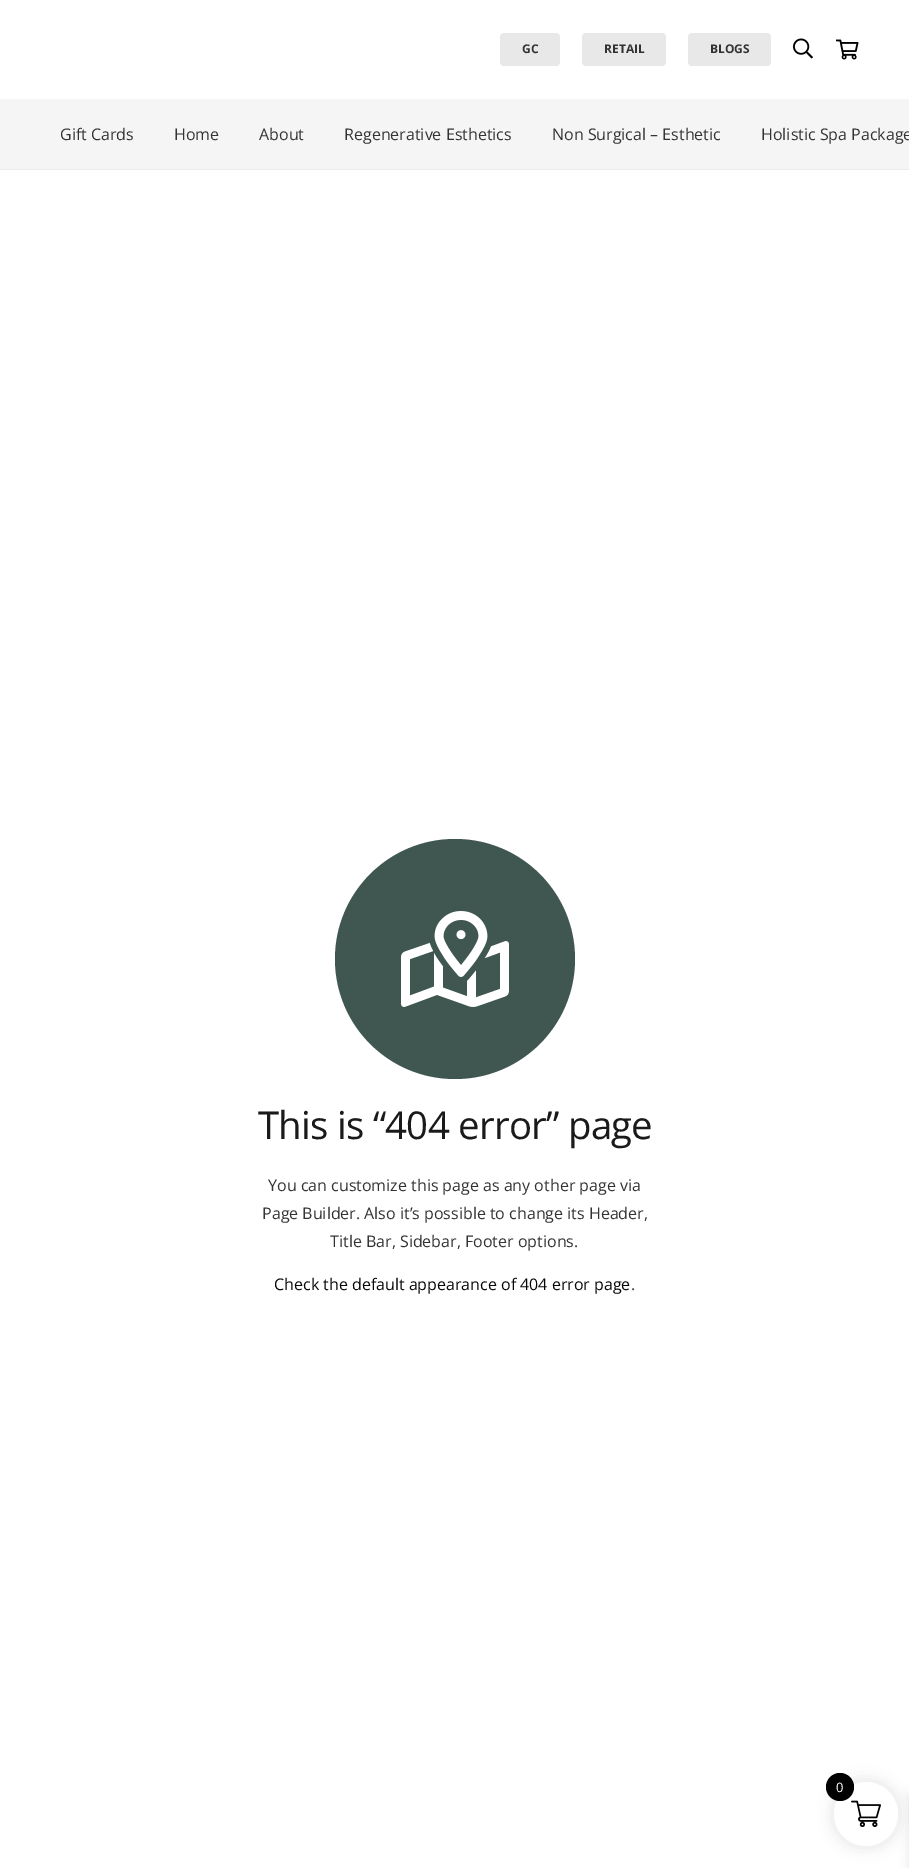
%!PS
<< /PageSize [909 1868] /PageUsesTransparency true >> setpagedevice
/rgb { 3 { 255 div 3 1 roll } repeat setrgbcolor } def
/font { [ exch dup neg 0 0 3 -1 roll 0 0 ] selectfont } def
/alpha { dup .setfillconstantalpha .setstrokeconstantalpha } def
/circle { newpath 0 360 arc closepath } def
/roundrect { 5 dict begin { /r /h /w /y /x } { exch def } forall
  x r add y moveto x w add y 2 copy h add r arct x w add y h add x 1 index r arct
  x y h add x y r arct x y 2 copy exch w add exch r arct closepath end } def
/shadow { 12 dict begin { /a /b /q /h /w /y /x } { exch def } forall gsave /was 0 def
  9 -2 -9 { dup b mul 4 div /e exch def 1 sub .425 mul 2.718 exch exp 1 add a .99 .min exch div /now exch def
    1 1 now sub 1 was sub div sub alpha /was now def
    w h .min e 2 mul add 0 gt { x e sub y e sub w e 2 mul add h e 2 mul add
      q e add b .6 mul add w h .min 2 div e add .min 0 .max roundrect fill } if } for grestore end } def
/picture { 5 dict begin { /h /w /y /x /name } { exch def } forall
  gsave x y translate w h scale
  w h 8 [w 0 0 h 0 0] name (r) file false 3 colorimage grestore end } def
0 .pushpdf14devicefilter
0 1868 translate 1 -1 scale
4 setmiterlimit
255 255 255 rgb
0 0 909 1868 rectfill
232 232 232 rgb
500 33 60 33 4 roundrect fill
582 33 84 33 4 roundrect fill
688 33 83 33 4 roundrect fill
(img/1.rgb) 793 38 20 21 picture
(img/2.rgb) 836 39 23 21 picture
235 235 235 rgb
0 169 909 1 rectfill
245 245 245 rgb
0 99 909 70 rectfill
64 86 80 rgb
455 959 120 circle fill
(img/3.rgb) 401 911 108 96 picture
0 0 0 rgb
832 1780 68 68 34 7.5 0.1 shadow
909 1795 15 72 0 5 0.1 shadow
255 255 255 rgb
866 1814 32 circle fill
(img/4.rgb) 851 1800 30 27 picture
0 0 0 rgb
840 1787 14 circle fill
/OpenSans-Bold 12 font
51 51 51 rgb
[
  [(GC) 522 53]
  [(RETAIL) 604 53]
  [(BLOGS) 710 53]
] { aload pop moveto show } forall
/OpenSans-Regular 16 font
[
  [(Gift Cards) 60 140]
  [(Home) 174 140]
  [(About) 259 140]
  [(Regenerative Esthetics) 344 140]
  [(Non Surgical – Esthetic) 552 140]
  [(Holistic Spa Package) 761 140]
] { aload pop moveto show } forall
/OpenSans-Regular 38.4 font
26 26 26 rgb
258 1139 moveto -0.75 0 (This is “404 error” page) ashow
/OpenSans-Regular 16 font
51 51 51 rgb
[
  [(You can customize this page as any other page via) 268 1191]
  [(Page Builder. Also it’s possible to change its Header,) 262 1219]
  [(Title Bar, Sidebar, Footer options.) 330 1247]
] { aload pop moveto show } forall
8 7 7 rgb
274 1290 moveto (Check the default appearance of 404 error page) show
51 51 51 rgb
631 1290 moveto (.) show
/OpenSans-Regular 13 font
255 255 255 rgb
836 1792 moveto (0) show
.poppdf14devicefilter showpage
